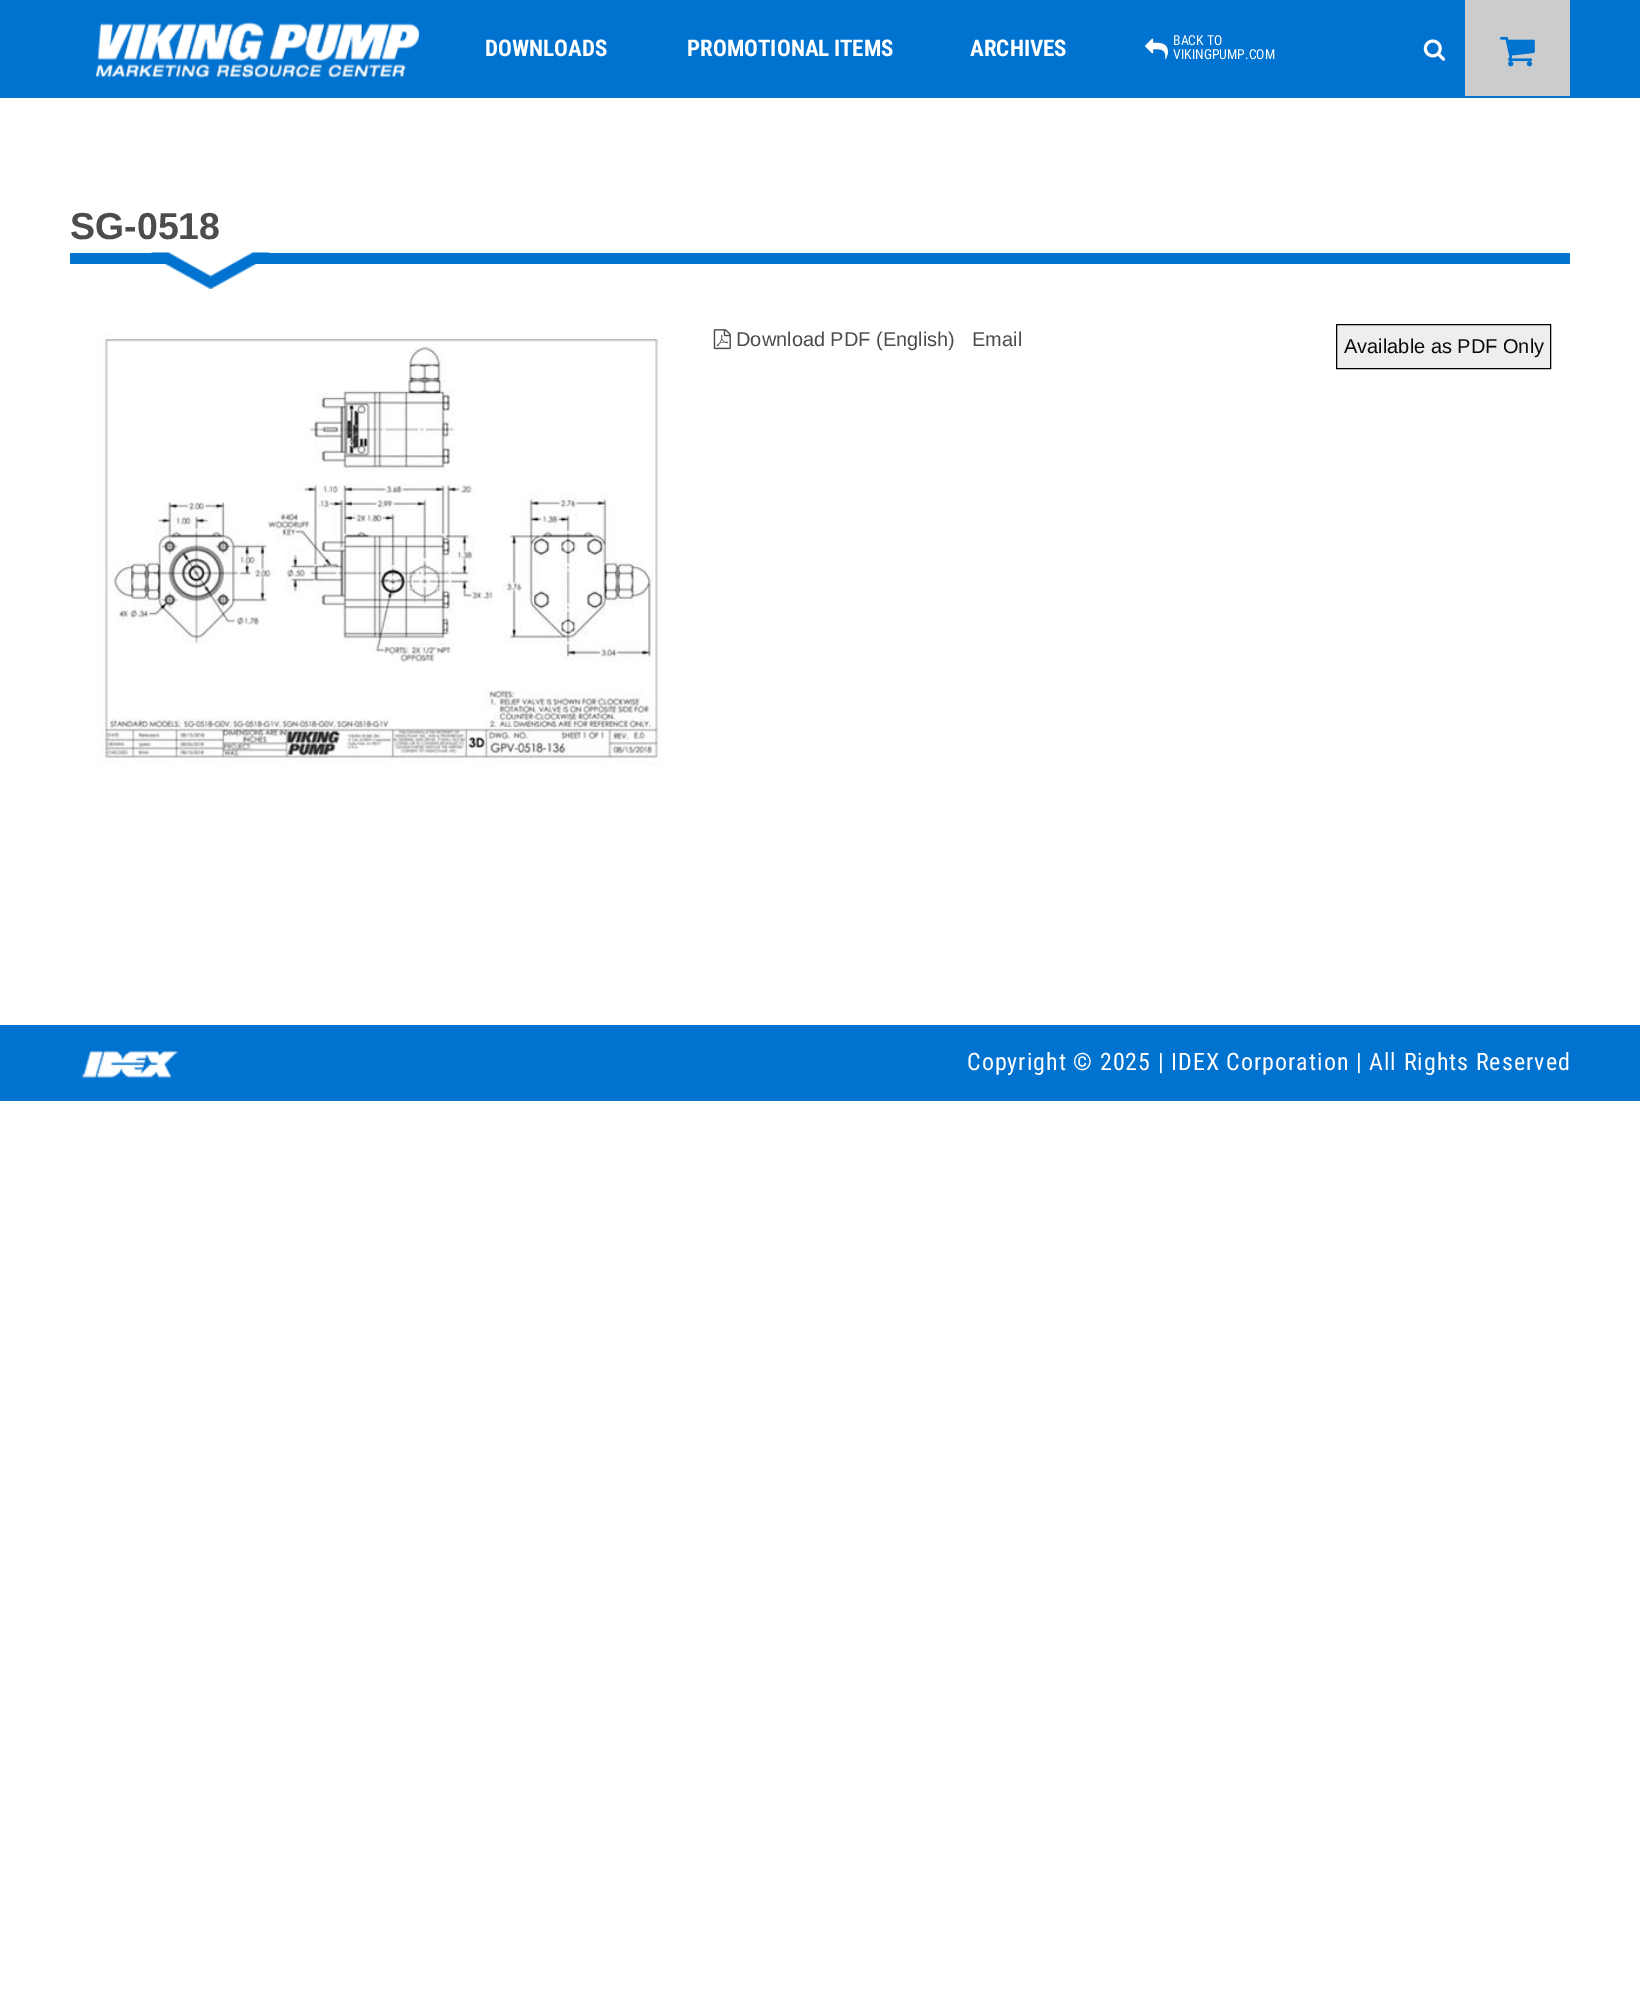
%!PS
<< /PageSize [1640 2003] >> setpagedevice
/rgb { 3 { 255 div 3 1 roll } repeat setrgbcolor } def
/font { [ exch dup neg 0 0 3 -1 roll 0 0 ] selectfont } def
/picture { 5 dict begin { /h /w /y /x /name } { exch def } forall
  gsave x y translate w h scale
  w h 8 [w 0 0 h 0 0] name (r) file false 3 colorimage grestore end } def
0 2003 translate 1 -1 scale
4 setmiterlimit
255 255 255 rgb
0 0 1640 2003 rectfill
0 114 207 rgb
0 0 1640 98 rectfill
(img/1.rgb) 95 22 325 56 picture
(img/2.rgb) 1145 38 23 22 picture
(img/3.rgb) 1423 39 23 22 picture
204 204 204 rgb
1465 0 105 96 rectfill
(img/4.rgb) 1500 36 35 31 picture
0 114 207 rgb
70 253 1500 11 rectfill
(img/5.rgb) 151 252 119 37 picture
(img/6.rgb) 98 333 564 433 picture
(img/7.rgb) 713 329 18 21 picture
238 238 238 rgb
1336.5 324.5 moveto 1550.5 324.5 lineto 1550.5 368.5 lineto 1336.5 368.5 lineto closepath gsave fill grestore
0 0 0 rgb
stroke
0 114 207 rgb
0 1025 1640 76 rectfill
(img/8.rgb) 82 1051 96 27 picture
/RobotoCondensed-Bold 23 font
255 255 255 rgb
485 56 moveto (DOWNLOADS) show
687 56 moveto -1 0 32 (PROMOTIONAL ITEMS) widthshow
970 56 moveto (ARCHIVES) show
/RobotoCondensed-Regular 13.75 font
1173 45 moveto (BACK TO) show
1173 59 moveto (VIKINGPUMP.COM) show
/LiberationSans-Bold 37.5 font
76 76 78 rgb
70 239 moveto (SG-0518) show
/LiberationSans-Regular 20 font
736 346 moveto (Download PDF \(English\)) show
972 346 moveto (Email) show
10 10 10 rgb
1344 353 moveto (Available as PDF Only) show
/RobotoCondensed-Regular 24 font
255 255 255 rgb
967 1070 moveto 1 0 (Copyright © 2025 | IDEX Corporation | All Rights Reserved) ashow
showpage
